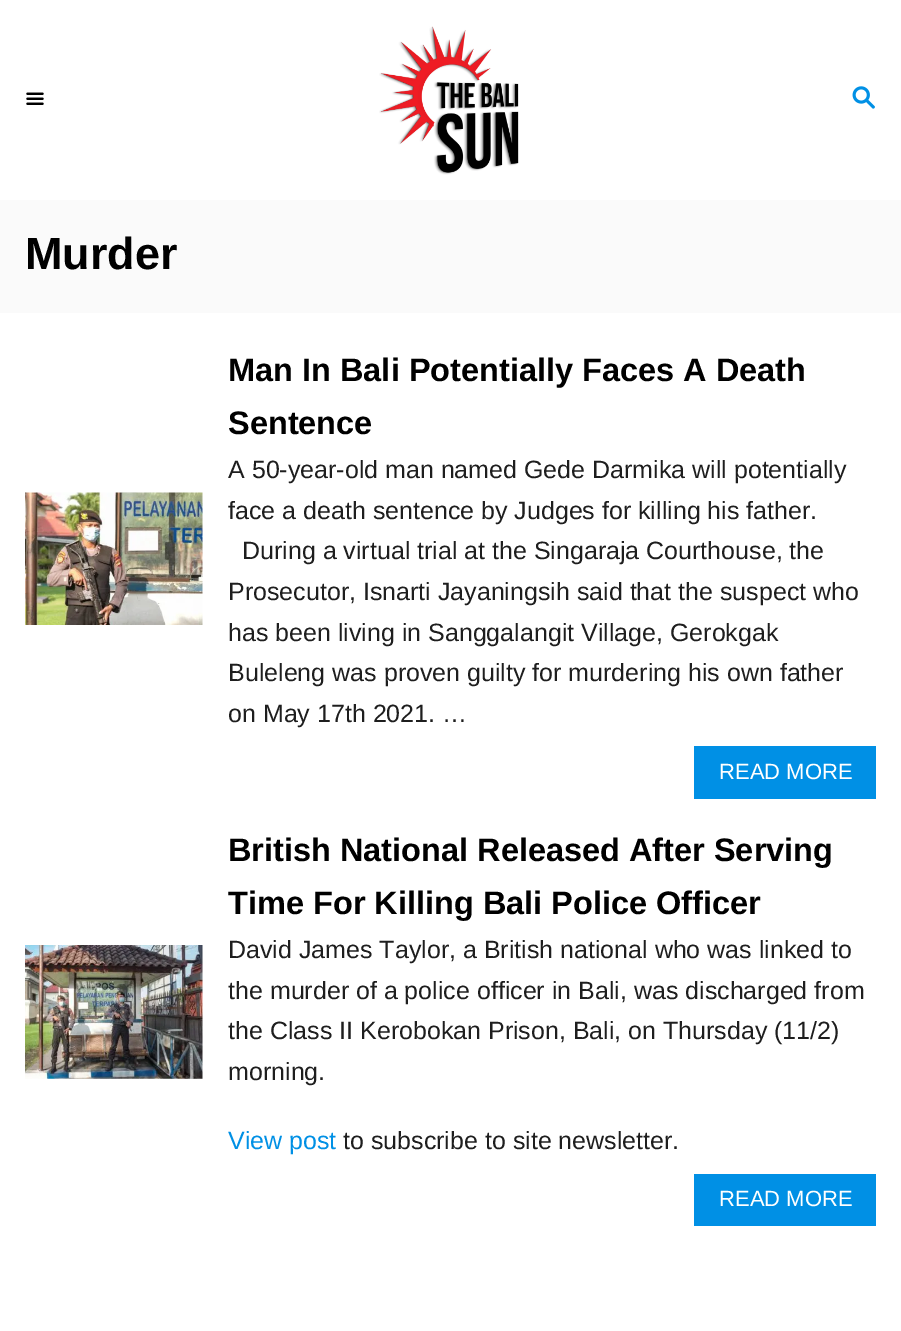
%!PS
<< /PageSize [901 1331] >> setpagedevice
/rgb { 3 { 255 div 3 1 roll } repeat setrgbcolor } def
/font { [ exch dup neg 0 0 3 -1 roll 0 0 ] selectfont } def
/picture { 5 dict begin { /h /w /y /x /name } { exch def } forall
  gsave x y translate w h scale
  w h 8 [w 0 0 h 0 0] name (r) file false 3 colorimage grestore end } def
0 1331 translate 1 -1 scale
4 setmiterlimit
255 255 255 rgb
0 0 901 1331 rectfill
(img/1.rgb) 26 92 18 13 picture
(img/2.rgb) 379 26 140 149 picture
(img/3.rgb) 852 86 23 23 picture
250 250 250 rgb
25 312 moveto 25 313 lineto 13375 313 lineto 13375 200 lineto 876 200 lineto 876 312 lineto closepath fill
25 200 851 112 rectfill
0 200 25 113 rectfill
(img/4.rgb) 25 492 178 133 picture
0 144 229 rgb
694 746 182 53 rectfill
(img/5.rgb) 25 945 178 134 picture
694 1174 182 52 rectfill
/LiberationSans-Bold 45 font
0 0 0 rgb
25 269 moveto (Murder) show
/LiberationSans-Bold 32.5 font
228 381 moveto (Man In Bali Potentially Faces A Death) show
228 434 moveto (Sentence) show
/LiberationSans-Regular 25 font
30 30 30 rgb
[
  [(A 50-year-old man named Gede Darmika will potentially) 228 478]
  [(face a death sentence by Judges for killing his father.) 228 519]
  [(During a virtual trial at the Singaraja Courthouse, the) 242 559]
  [(Prosecutor, Isnarti Jayaningsih said that the suspect who) 228 600]
  [(has been living in Sanggalangit Village, Gerokgak) 228 641]
  [(Buleleng was proven guilty for murdering his own father) 228 681]
  [(on May 17th 2021. …) 228 722]
] { aload pop moveto show } forall
/LiberationSans-Regular 22 font
255 255 255 rgb
719 779 moveto (READ MORE) show
/LiberationSans-Bold 32.5 font
0 0 0 rgb
228 861 moveto (British National Released After Serving) show
228 914 moveto (Time For Killing Bali Police Officer) show
/LiberationSans-Regular 25 font
30 30 30 rgb
[
  [(David James Taylor, a British national who was linked to) 228 958]
  [(the murder of a police officer in Bali, was discharged from) 228 999]
  [(the Class II Kerobokan Prison, Bali, on Thursday \(11/2\)) 228 1039]
  [(morning.) 228 1080]
] { aload pop moveto show } forall
0 144 229 rgb
228 1149 moveto (View post) show
30 30 30 rgb
343 1149 moveto (to subscribe to site newsletter.) show
/LiberationSans-Regular 22 font
255 255 255 rgb
719 1206 moveto (READ MORE) show
showpage
